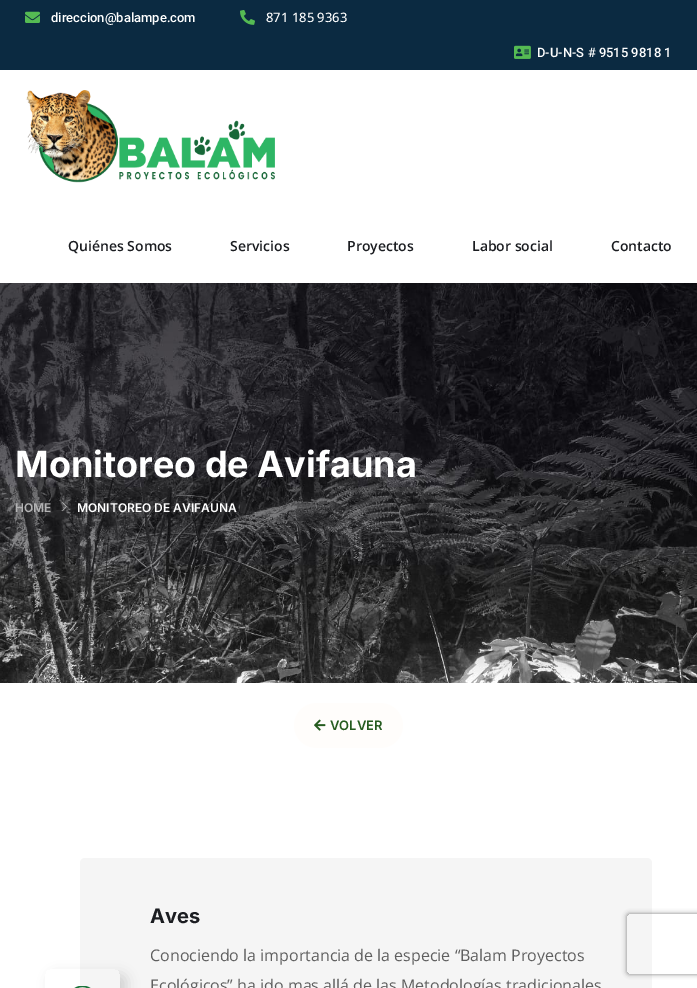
%!PS
<< /PageSize [697 988] /PageUsesTransparency true >> setpagedevice
/rgb { 3 { 255 div 3 1 roll } repeat setrgbcolor } def
/font { [ exch dup neg 0 0 3 -1 roll 0 0 ] selectfont } def
/alpha { dup .setfillconstantalpha .setstrokeconstantalpha } def
/roundrect { 5 dict begin { /r /h /w /y /x } { exch def } forall
  x r add y moveto x w add y 2 copy h add r arct x w add y h add x 1 index r arct
  x y h add x y r arct x y 2 copy exch w add exch r arct closepath end } def
/shadow { 12 dict begin { /a /b /q /h /w /y /x } { exch def } forall gsave /was 0 def
  9 -2 -9 { dup b mul 4 div /e exch def 1 sub .425 mul 2.718 exch exp 1 add a .99 .min exch div /now exch def
    1 1 now sub 1 was sub div sub alpha /was now def
    w h .min e 2 mul add 0 gt { x e sub y e sub w e 2 mul add h e 2 mul add
      q e add b .6 mul add w h .min 2 div e add .min 0 .max roundrect fill } if } for grestore end } def
/picture { 5 dict begin { /h /w /y /x /name } { exch def } forall
  gsave x y translate w h scale
  w h 8 [w 0 0 h 0 0] name (r) file false 3 colorimage grestore end } def
0 .pushpdf14devicefilter
0 988 translate 1 -1 scale
4 setmiterlimit
255 255 255 rgb
0 0 697 988 rectfill
11 42 65 rgb
0 0 697 70 rectfill
(img/1.rgb) 25 11 15 12 picture
(img/2.rgb) 240 10 15 15 picture
(img/3.rgb) 514 45 17 14 picture
(img/4.rgb) 26 90 249 93 picture
(img/5.rgb) 0 283 697 400 picture
(img/6.rgb) 62 502 5 9 picture
255 253 251 rgb
294 703 109 45 22.5 roundrect fill
(img/7.rgb) 314 719 12 12 picture
245 245 245 rgb
80 858 572 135 5 roundrect fill
gsave
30 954 moveto 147 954 lineto 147 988 lineto 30 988 lineto closepath 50 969 moveto 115 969 lineto 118 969 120 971 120 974 curveto 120 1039 lineto 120 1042 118 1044 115 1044 curveto 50 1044 lineto 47 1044 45 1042 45 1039 curveto 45 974 lineto 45 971 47 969 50 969 curveto closepath eoclip newpath
0 0 0 rgb
51 975 75 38 5 6.5 0.15 shadow
grestore
(img/8.rgb) 74 986 17 2 picture
gsave
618 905 moveto 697 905 lineto 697 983 lineto 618 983 lineto closepath 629 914 moveto 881 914 lineto 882 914 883 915 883 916 curveto 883 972 lineto 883 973 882 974 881 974 curveto 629 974 lineto 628 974 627 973 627 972 curveto 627 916 lineto 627 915 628 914 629 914 curveto closepath eoclip newpath
128 128 128 rgb
627 914 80 60 2 2.5 1 shadow
grestore
/Roboto-Medium 13 font
255 255 255 rgb
51 22 moveto (direccion@balampe.com) show
/OpenSans-Medium 13 font
266 22 moveto (871 185 9363) show
/Roboto-Medium 13 font
537 57 moveto (D-U-N-S # 9515 9818 1) show
/OpenSans-SemiBold 14 font
27 29 33 rgb
[
  [(Quiénes Somos) 68 251]
  [(Servicios) 230 251]
  [(Proyectos) 347 251]
  [(Labor social) 472 251]
  [(Contacto) 611 251]
] { aload pop moveto show } forall
/Inter-Bold 36 font
255 255 255 rgb
15 477 moveto (Monitoreo de Avifauna) show
/Inter-SemiBold 12 font
179 179 180 rgb
15 512 moveto (HOME) show
255 255 255 rgb
77 512 moveto (MONITOREO DE AVIFAUNA) show
/Inter-SemiBold 13 font
37 91 31 rgb
330 730 moveto (VOLVER) show
/Inter-Bold 20 font
27 29 33 rgb
150 923 moveto (Aves) show
/OpenSans-Regular 16 font
95 95 95 rgb
150 961 moveto (Conociendo la importancia de la especie “Balam Proyectos) show
150 991 moveto (Ecológicos” ha ido mas allá de las Metodologías tradicionales) show
.poppdf14devicefilter showpage
